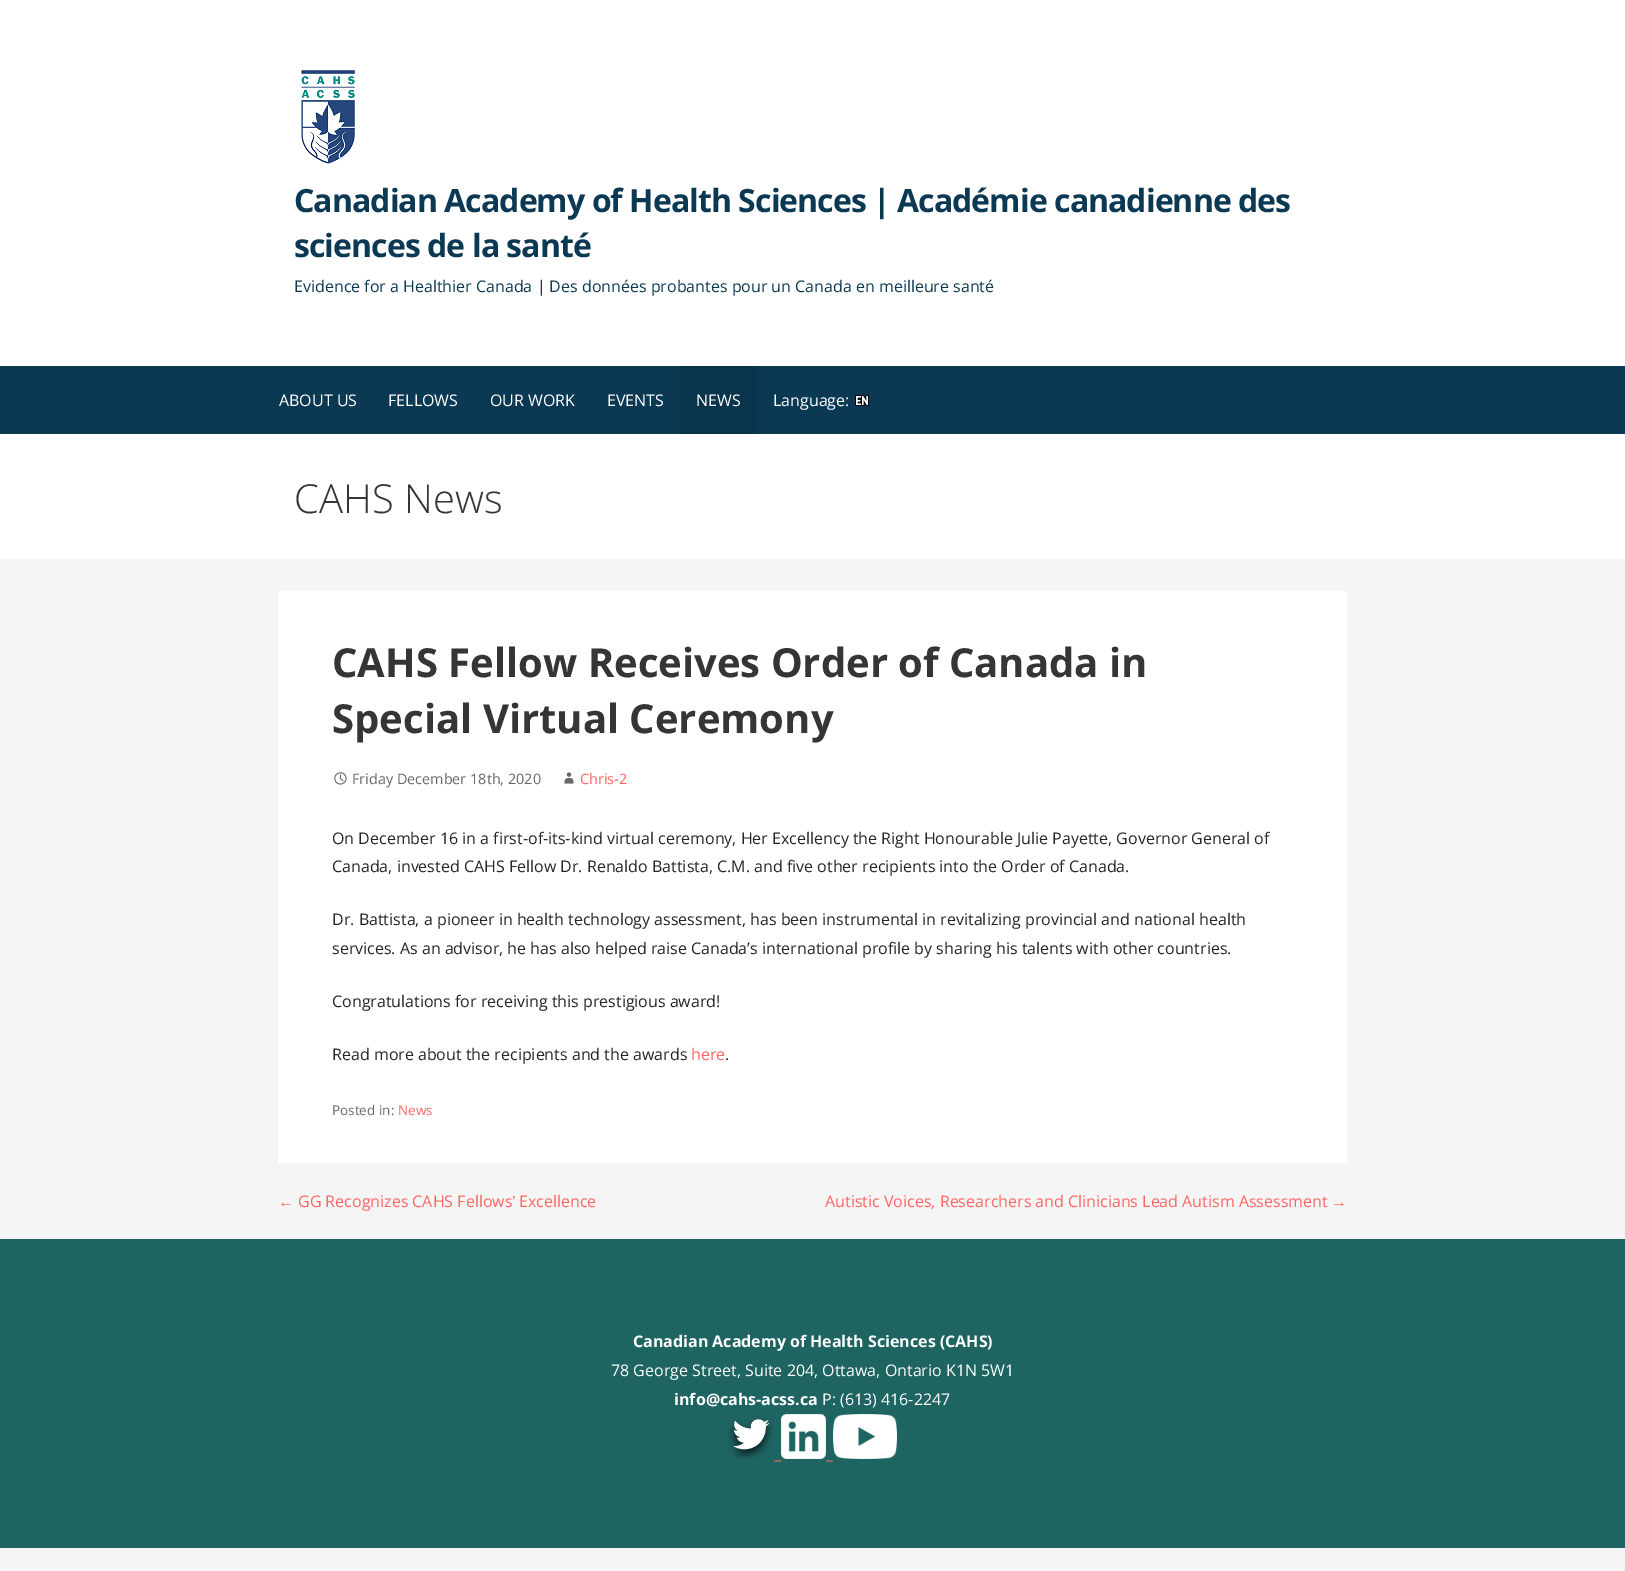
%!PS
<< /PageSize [1625 1571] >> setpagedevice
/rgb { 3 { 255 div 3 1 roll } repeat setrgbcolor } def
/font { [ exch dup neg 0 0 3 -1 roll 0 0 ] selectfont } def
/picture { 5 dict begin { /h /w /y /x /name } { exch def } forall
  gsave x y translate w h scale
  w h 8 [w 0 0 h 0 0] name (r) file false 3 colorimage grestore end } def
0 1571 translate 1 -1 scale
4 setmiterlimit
245 245 245 rgb
0 0 1625 1571 rectfill
255 255 255 rgb
0 0 1625 366 rectfill
(img/1.rgb) 301 70 54 94 picture
11 57 84 rgb
0 366 1625 68 rectfill
10 51 76 rgb
680 366 77 68 rectfill
(img/2.rgb) 855 395 14 11 picture
255 255 255 rgb
0 434 1625 125 rectfill
278 591 1069 572 rectfill
(img/3.rgb) 334 772 13 13 picture
(img/4.rgb) 564 772 10 12 picture
30 100 97 rgb
0 1239 1625 309 rectfill
(img/5.rgb) 728 1417 45 42 picture
(img/6.rgb) 781 1414 45 45 picture
(img/7.rgb) 833 1414 64 45 picture
/OpenSans-Bold 32 font
11 57 84 rgb
294 212 moveto -0.95 0 (Canadian Academy of Health Sciences | Académie canadienne des) ashow
294 257 moveto -0.95 0 (sciences de la santé) ashow
/OpenSans-Regular 16 font
294 292 moveto (Evidence for a Healthier Canada | Des données probantes pour un Canada en meilleure santé) show
255 255 255 rgb
[
  [(ABOUT US) 279 406]
  [(FELLOWS) 388 406]
  [(OUR WORK) 490 406]
  [(EVENTS) 607 406]
  [(NEWS) 696 406]
  [(Language:) 773 406]
] { aload pop moveto show } forall
/OpenSans-Light 40 font
53 53 53 rgb
294 513 moveto (CAHS News) show
/OpenSans-Bold 40 font
332 677 moveto (CAHS Fellow Receives Order of Canada in) show
332 733 moveto (Special Virtual Ceremony) show
/OpenSans-Regular 14.4 font
104 104 104 rgb
352 784 moveto (Friday December 18th, 2020) show
255 102 99 rgb
580 784 moveto (Chris-2) show
/OpenSans-Regular 16 font
37 37 37 rgb
[
  [(On December 16 in a first-of-its-kind virtual ceremony, Her Excellency the Right Honourable Julie Payette, Governor General of) 332 844]
  [(Canada, invested CAHS Fellow Dr. Renaldo Battista, C.M. and five other recipients into the Order of Canada.) 332 872]
  [(Dr. Battista, a pioneer in health technology assessment, has been instrumental in revitalizing provincial and national health) 332 925]
  [(services. As an advisor, he has also helped raise Canada’s international profile by sharing his talents with other countries.) 332 954]
  [(Congratulations for receiving this prestigious award!) 332 1007]
  [(Read more about the recipients and the awards) 332 1060]
] { aload pop moveto show } forall
255 102 99 rgb
691 1060 moveto (here) show
37 37 37 rgb
725 1060 moveto (.) show
/OpenSans-Regular 13.5 font
104 104 104 rgb
332 1115 moveto (Posted in:) show
255 102 99 rgb
398 1115 moveto (News) show
/OpenSans-Regular 16 font
298 1207 moveto (GG Recognizes CAHS Fellows) show
/LiberationSans-Regular 16 font
512 1207 moveto (’) show
/OpenSans-Regular 16 font
519 1207 moveto (Excellence) show
/LiberationSans-Regular 16 font
278 1207 moveto (←) show
/OpenSans-Regular 16 font
825 1207 moveto (Autistic Voices, Researchers and Clinicians Lead Autism Assessment) show
/LiberationSans-Regular 16 font
1331 1207 moveto (→) show
/OpenSans-Bold 16 font
255 255 255 rgb
633 1347 moveto (Canadian Academy of Health Sciences \(CAHS\)) show
/OpenSans-Regular 16 font
611 1376 moveto (78 George Street, Suite 204, Ottawa, Ontario K1N 5W1) show
/OpenSans-Bold 16 font
674 1405 moveto (info@cahs-acss.ca) show
/OpenSans-Regular 16 font
822 1405 moveto (P: \(613\) 416-2247) show
255 102 99 rgb
774 1459 moveto (_) show
826 1459 moveto (_) show
showpage
